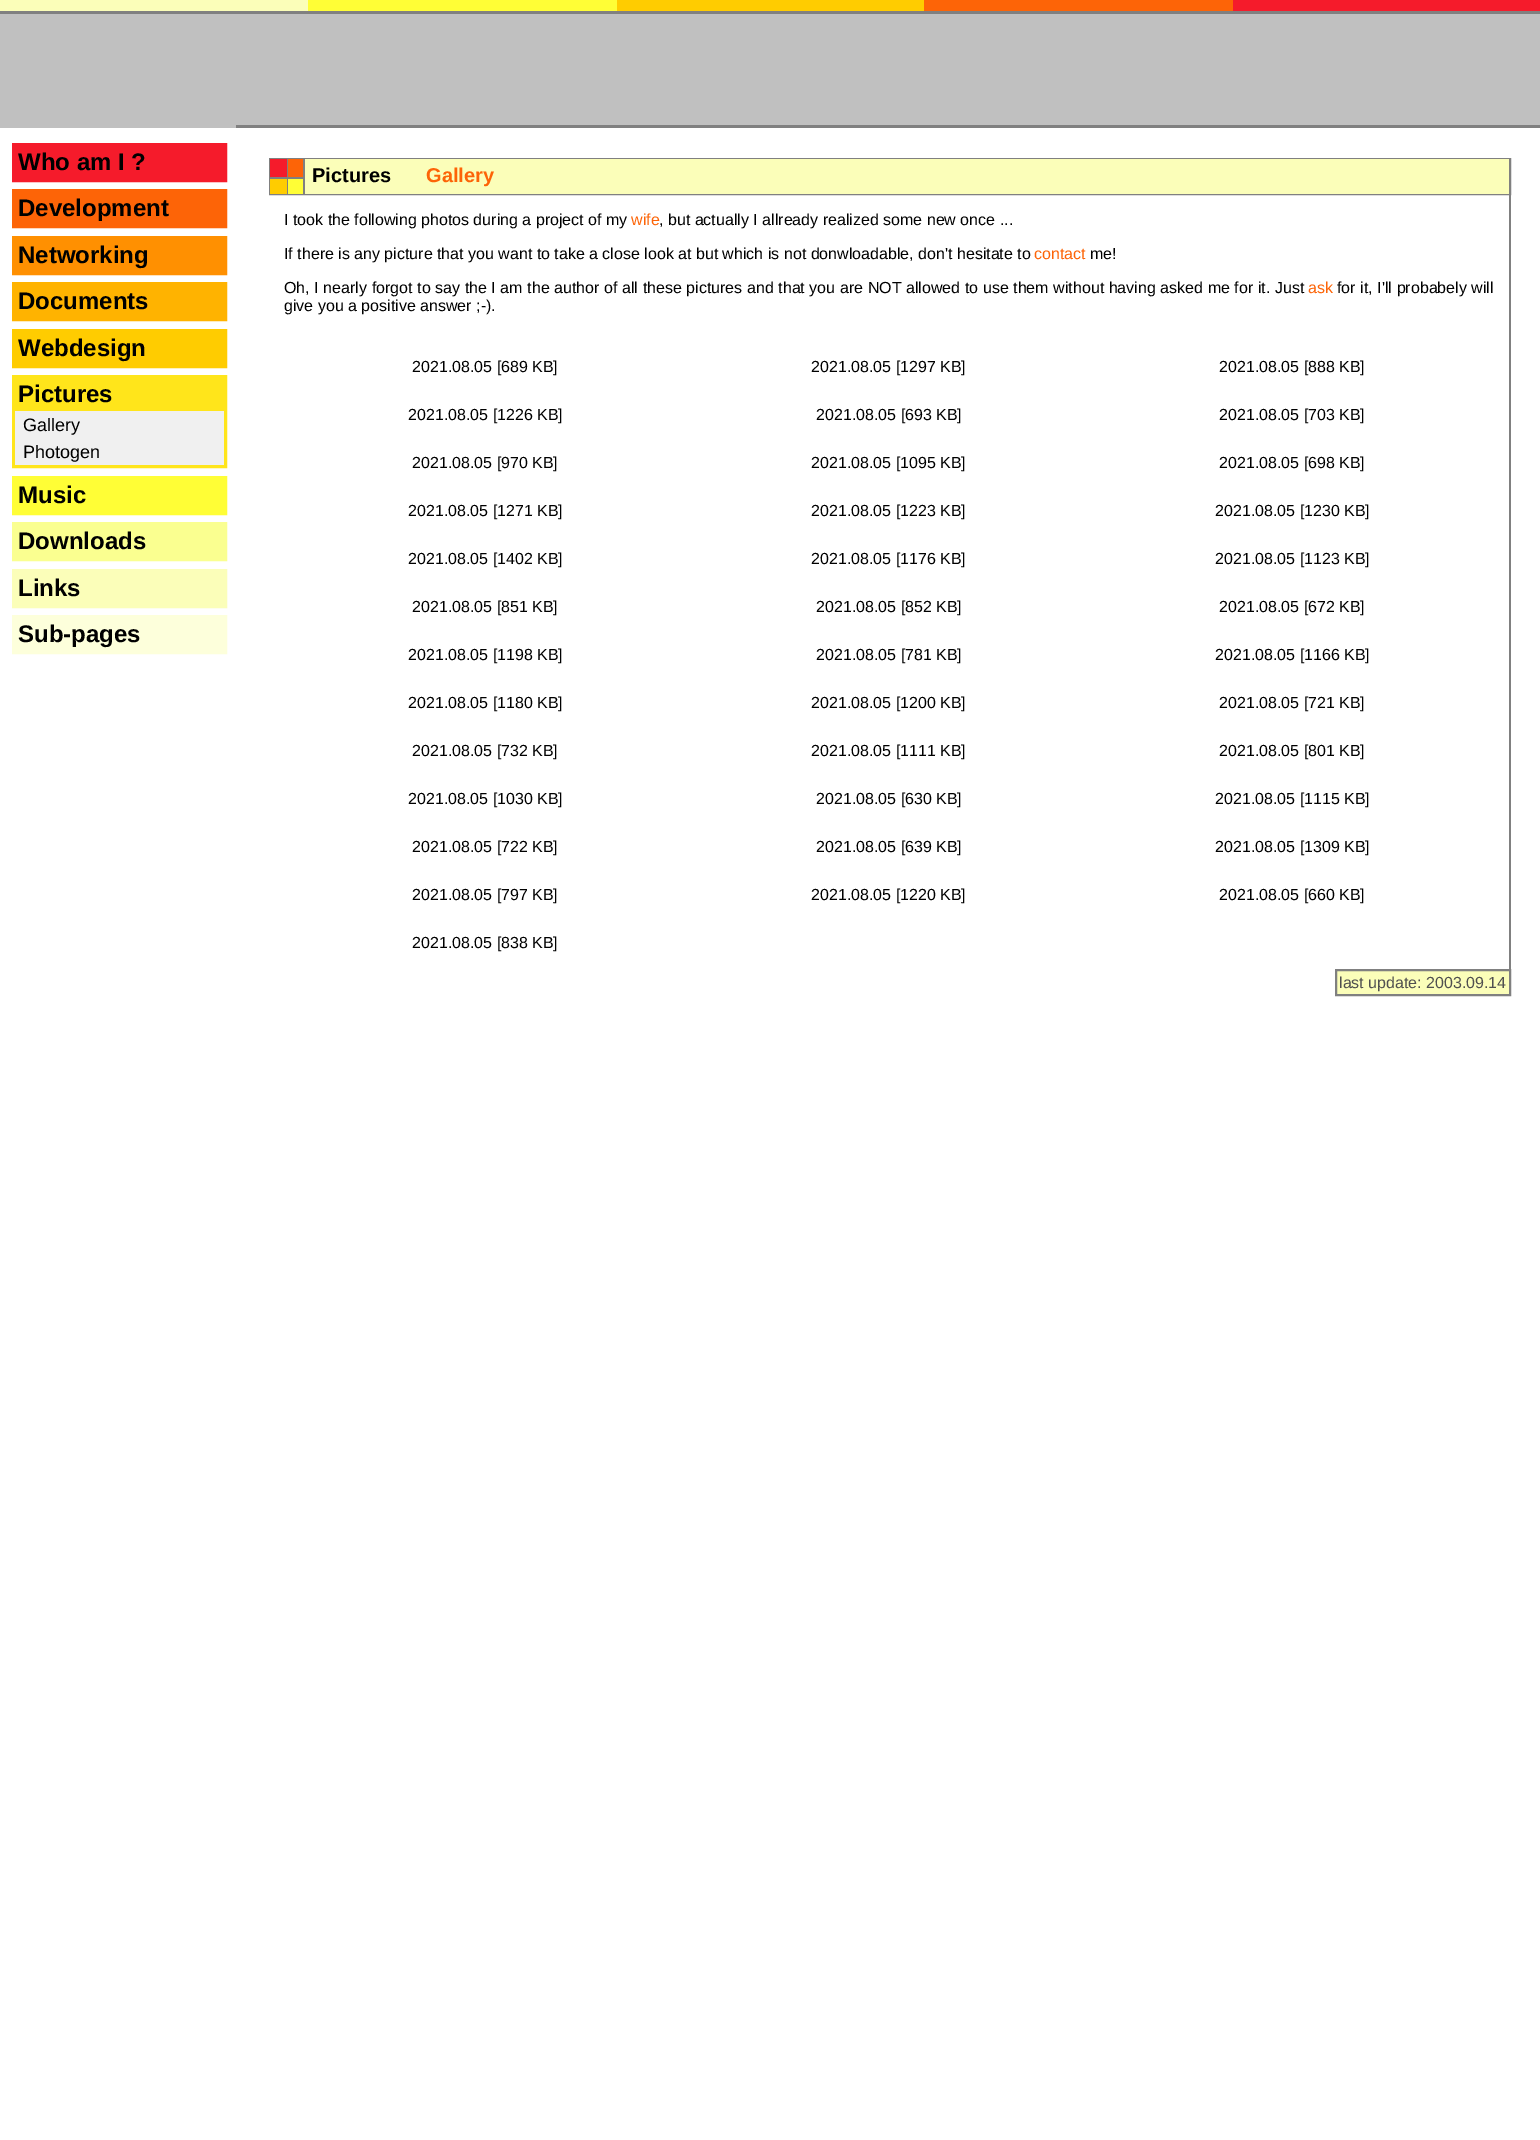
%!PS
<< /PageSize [1540 2140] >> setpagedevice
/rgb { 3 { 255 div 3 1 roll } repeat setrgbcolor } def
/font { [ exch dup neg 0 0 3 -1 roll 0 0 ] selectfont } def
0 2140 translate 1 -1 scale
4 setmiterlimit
255 255 255 rgb
0 0 1540 2140 rectfill
[
  [0 11 1540 3 128 128 128]
  [0 0 308 11 251 254 185]
  [308 0 309 11 255 254 54]
  [617 0 307 11 255 204 0]
  [924 0 309 11 253 100 7]
  [1233 0 307 11 245 27 43]
  [0 14 1540 114 192 192 192]
  [236 125 1304 3 128 128 128]
] { aload pop rgb rectfill } forall
245 27 43 rgb
3 setlinewidth
13.5 144.5 212 36 rectstroke
15 146 209 33 rectfill
253 100 7 rgb
13.5 190.5 212 36 rectstroke
15 192 209 33 rectfill
255 144 1 rgb
13.5 237.5 212 36 rectstroke
15 239 209 33 rectfill
255 179 0 rgb
13.5 283.5 212 36 rectstroke
15 285 209 33 rectfill
255 204 0 rgb
13.5 330.5 212 36 rectstroke
15 332 209 33 rectfill
255 229 27 rgb
13.5 376.5 212 90 rectstroke
15 378 209 33 rectfill
240 240 240 rgb
15 411 209 54 rectfill
255 254 54 rgb
13.5 477.5 212 36 rectstroke
15 479 209 33 rectfill
250 255 144 rgb
13.5 523.5 212 36 rectstroke
15 525 209 33 rectfill
251 254 185 rgb
13.5 570.5 212 36 rectstroke
15 572 209 33 rectfill
253 255 219 rgb
13.5 616.5 212 36 rectstroke
15 618 209 33 rectfill
128 128 128 rgb
2 setlinewidth
270 159 1240 35 rectstroke
[
  [270 159 17 18 245 27 43]
  [287 159 1 18 128 128 128]
  [288 159 15 18 253 100 7]
  [303 159 2 18 128 128 128]
  [270 179 17 15 255 204 0]
  [270 177 35 2 128 128 128]
  [287 177 1 17 128 128 128]
  [288 179 15 15 255 254 54]
  [303 177 2 17 128 128 128]
  [305 159 1204 35 251 254 185]
  [1509 195 2 774 128 128 128]
] { aload pop rgb rectfill } forall
251 254 185 rgb
1336 970 moveto 1510 970 lineto 1510 995 lineto 1336 995 lineto closepath gsave fill grestore
128 128 128 rgb
stroke
/LiberationSans-Bold 24 font
0 0 0 rgb
[
  [(Who am I ?) 18 170]
  [(Development) 18 216]
  [(Networking) 18 263]
  [(Documents) 18 309]
  [(Webdesign) 18 356]
  [(Pictures) 18 402]
] { aload pop moveto show } forall
/LiberationSans-Regular 18 font
23 431 moveto (Gallery) show
23 458 moveto (Photogen) show
/LiberationSans-Bold 24 font
[
  [(Music) 18 503]
  [(Downloads) 18 549]
  [(Links) 18 596]
  [(Sub-pages) 18 642]
] { aload pop moveto show } forall
/LiberationSans-Bold 20 font
312 182 moveto (Pictures) show
253 100 7 rgb
426 182 moveto (Gallery) show
/LiberationSans-Regular 16 font
0 0 0 rgb
284 225 moveto (I took the following photos during a project of my) show
253 100 7 rgb
631 225 moveto (wife) show
0 0 0 rgb
659 225 moveto (, but actually I allready realized some new once ...) show
284 259 moveto (If there is any picture that you want to take a close look at but which is not donwloadable, don't hesitate to) show
253 100 7 rgb
1034 259 moveto (contact) show
0 0 0 rgb
1090 259 moveto (me!) show
284 293 moveto 0.15 0 32 (Oh, I nearly forgot to say the I am the author of all these pictures and that you are NOT allowed to use them without having asked me for it. Just) widthshow
253 100 7 rgb
1308 293 moveto (ask) show
0 0 0 rgb
1337 293 moveto 0.15 0 32 (for it, I'll probabely will) widthshow
[
  [(give you a positive answer ;-\).) 284 311]
  [(2021.08.05 [689 KB]) 412 372]
  [(2021.08.05 [1297 KB]) 811 372]
  [(2021.08.05 [888 KB]) 1219 372]
  [(2021.08.05 [1226 KB]) 408 420]
  [(2021.08.05 [693 KB]) 816 420]
  [(2021.08.05 [703 KB]) 1219 420]
  [(2021.08.05 [970 KB]) 412 468]
  [(2021.08.05 [1095 KB]) 811 468]
  [(2021.08.05 [698 KB]) 1219 468]
  [(2021.08.05 [1271 KB]) 408 516]
  [(2021.08.05 [1223 KB]) 811 516]
  [(2021.08.05 [1230 KB]) 1215 516]
  [(2021.08.05 [1402 KB]) 408 564]
  [(2021.08.05 [1176 KB]) 811 564]
  [(2021.08.05 [1123 KB]) 1215 564]
  [(2021.08.05 [851 KB]) 412 612]
  [(2021.08.05 [852 KB]) 816 612]
  [(2021.08.05 [672 KB]) 1219 612]
  [(2021.08.05 [1198 KB]) 408 660]
  [(2021.08.05 [781 KB]) 816 660]
  [(2021.08.05 [1166 KB]) 1215 660]
  [(2021.08.05 [1180 KB]) 408 708]
  [(2021.08.05 [1200 KB]) 811 708]
  [(2021.08.05 [721 KB]) 1219 708]
  [(2021.08.05 [732 KB]) 412 756]
  [(2021.08.05 [1111 KB]) 811 756]
  [(2021.08.05 [801 KB]) 1219 756]
  [(2021.08.05 [1030 KB]) 408 804]
  [(2021.08.05 [630 KB]) 816 804]
  [(2021.08.05 [1115 KB]) 1215 804]
  [(2021.08.05 [722 KB]) 412 852]
  [(2021.08.05 [639 KB]) 816 852]
  [(2021.08.05 [1309 KB]) 1215 852]
  [(2021.08.05 [797 KB]) 412 900]
  [(2021.08.05 [1220 KB]) 811 900]
  [(2021.08.05 [660 KB]) 1219 900]
  [(2021.08.05 [838 KB]) 412 948]
] { aload pop moveto show } forall
80 80 80 rgb
1339 988 moveto (last update: 2003.09.14) show
showpage
